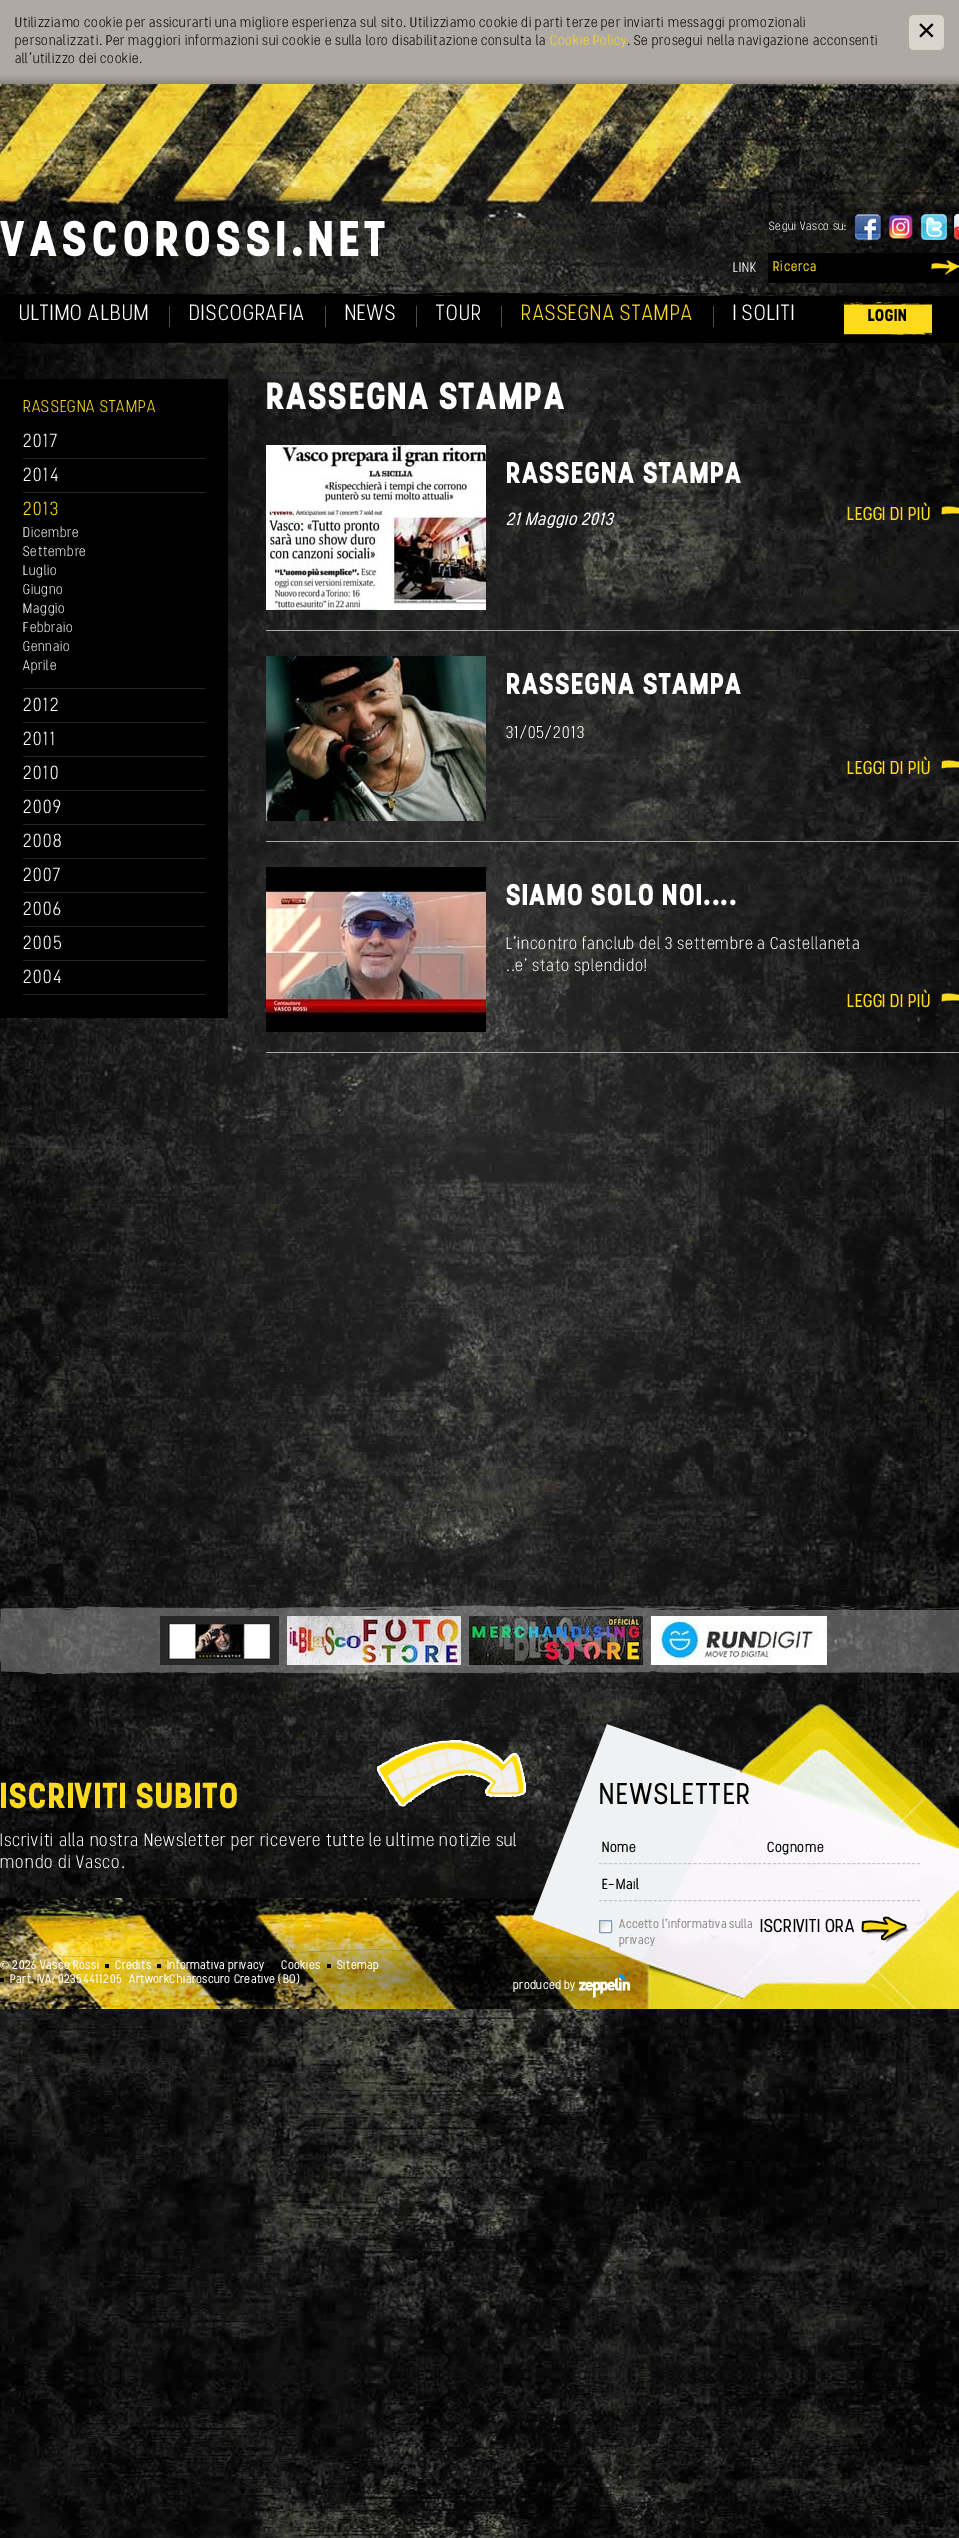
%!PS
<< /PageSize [959 2538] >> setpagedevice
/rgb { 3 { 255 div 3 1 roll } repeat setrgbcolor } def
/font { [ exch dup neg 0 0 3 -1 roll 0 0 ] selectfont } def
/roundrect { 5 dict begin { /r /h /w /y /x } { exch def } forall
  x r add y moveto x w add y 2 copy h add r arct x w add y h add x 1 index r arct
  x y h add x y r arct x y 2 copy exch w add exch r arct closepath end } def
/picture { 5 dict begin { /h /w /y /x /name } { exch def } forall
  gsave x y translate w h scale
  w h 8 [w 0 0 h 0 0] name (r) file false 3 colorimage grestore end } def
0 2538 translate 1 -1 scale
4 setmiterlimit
255 255 255 rgb
0 0 959 2538 rectfill
(img/1.rgb) 0 2009 959 529 picture
174 169 163 rgb
0 0 959 74 rectfill
219 212 204 rgb
909 15 35 35 5 roundrect fill
gsave 0 74 moveto 959 74 lineto 959 84 lineto 0 84 lineto closepath clip newpath
<< /ShadingType 2 /ColorSpace /DeviceRGB /Coords [480 74 480 84] /Extend [true true] /Function << /FunctionType 2 /Domain [0 1] /C0 [0.682 0.663 0.639] /C1 [0.545 0.529 0.51] /N 1 >> >> shfill grestore
(img/2.rgb) 0 84 959 1814 picture
(img/3.rgb) 0 220 385 37 picture
(img/4.rgb) 855 214 26 26 picture
(img/5.rgb) 888 215 25 24 picture
(img/6.rgb) 921 214 26 26 picture
(img/7.rgb) 954 214 5 26 picture
0 0 0 rgb
768 253 191 30 rectfill
(img/8.rgb) 930 259 29 17 picture
(img/9.rgb) 0 292 959 54 picture
[
  [169 306 1 21 77 77 77]
  [325 306 1 21 77 77 77]
  [416 306 1 21 77 77 77]
  [501 306 1 21 77 77 77]
  [713 306 1 21 77 77 77]
] { aload pop rgb rectfill } forall
(img/10.rgb) 844 302 88 33 picture
[
  [0 379 228 639 0 0 0]
  [23 458 182 1 38 38 38]
  [23 492 182 1 38 38 38]
  [23 688 182 1 38 38 38]
  [23 722 182 1 38 38 38]
  [23 756 182 1 38 38 38]
  [23 790 182 1 38 38 38]
  [23 824 182 1 38 38 38]
  [23 858 182 1 38 38 38]
  [23 892 182 1 38 38 38]
  [23 926 182 1 38 38 38]
  [23 960 182 1 38 38 38]
  [23 994 182 1 38 38 38]
  [266 630 693 1 174 169 166]
] { aload pop rgb rectfill } forall
(img/11.rgb) 266 445 220 165 picture
(img/12.rgb) 941 506 18 9 picture
266 841 693 1 rectfill
(img/13.rgb) 266 656 220 165 picture
(img/14.rgb) 941 760 18 9 picture
266 1052 693 1 rectfill
(img/15.rgb) 266 867 220 165 picture
(img/16.rgb) 941 993 18 9 picture
(img/17.rgb) 0 1898 649 111 picture
(img/18.rgb) 0 1605 959 69 picture
(img/19.rgb) 160 1616 119 49 picture
(img/20.rgb) 287 1616 174 49 picture
(img/21.rgb) 469 1616 174 49 picture
(img/22.rgb) 651 1616 176 49 picture
(img/23.rgb) 376 1739 152 69 picture
(img/24.rgb) 532 1704 427 305 picture
197 198 201 rgb
[3 1.97] 0 setdash
599 1863.5 moveto 920 1863.5 lineto stroke
599 1900.5 moveto 920 1900.5 lineto stroke
(img/25.rgb) 599 1920 13 13 picture
127 157 185 rgb
[] 0 setdash
599.5 1920.5 12 12 1.5 roundrect stroke
(img/26.rgb) 861 1916 48 27 picture
(img/27.rgb) 2 1949 628 11 picture
[
  [105 1964 4 4 0 0 0]
  [157 1964 4 4 0 0 0]
  [327 1964 4 4 0 0 0]
  [0 1978 4 4 0 0 0]
] { aload pop rgb rectfill } forall
(img/28.rgb) 579 1974 51 24 picture
/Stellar-Light 14 font
15 27 moveto (Utilizziamo cookie per assicurarti una migliore esperienza sul sito. Utilizziamo cookie di parti terze per inviarti messaggi promozionali) show
15 45 moveto (personalizzati. Per maggiori informazioni sui cookie e sulla loro disabilitazione consulta la) show
253 218 27 rgb
550 45 moveto (Cookie Policy) show
0 0 0 rgb
627 45 moveto (. Se prosegui nella navigazione acconsenti) show
15 63 moveto (all’utilizzo dei cookie.) show
/LiberationSans-Regular 32 font
917 41 moveto (×) show
/Stellar-Light 12 font
255 255 255 rgb
769 230 moveto (Segui Vasco su:) show
/Stellar-Light 14 font
733 272 moveto (LINK) show
/Stellar-Regular 14 font
253 218 27 rgb
773 271 moveto (Ricerca) show
/Stellar-Light 22 font
255 255 255 rgb
[
  [(ULTIMO ALBUM) 19 320]
  [(DISCOGRAFIA) 189 320]
  [(NEWS) 345 320]
  [(TOUR) 436 320]
] { aload pop moveto show } forall
253 218 27 rgb
521 320 moveto (RASSEGNA STAMPA) show
255 255 255 rgb
733 320 moveto (I SOLITI) show
/Stellar-Bold 17 font
0 0 0 rgb
868 321 moveto (LOGIN) show
/Stellar-Light 17 font
253 218 27 rgb
23 412 moveto (RASSEGNA STAMPA) show
/Stellar-Light 19 font
255 255 255 rgb
23 447 moveto (2017) show
23 481 moveto (2014) show
253 218 27 rgb
23 515 moveto (2013) show
/Stellar-Light 14 font
255 255 255 rgb
[
  [(Dicembre) 23 537]
  [(Settembre) 23 556]
  [(Luglio) 23 575]
  [(Giugno) 23 594]
  [(Maggio) 23 613]
  [(Febbraio) 23 632]
  [(Gennaio) 23 651]
  [(Aprile) 23 670]
] { aload pop moveto show } forall
/Stellar-Light 19 font
[
  [(2012) 23 711]
  [(2011) 23 745]
  [(2010) 23 779]
  [(2009) 23 813]
  [(2008) 23 847]
  [(2007) 23 881]
  [(2006) 23 915]
  [(2005) 23 949]
  [(2004) 23 983]
] { aload pop moveto show } forall
/Stellar-Bold 38 font
266 409 moveto (RASSEGNA STAMPA) show
/Stellar-Bold 30 font
506 483 moveto (RASSEGNA STAMPA) show
/Stellar-BoldItalic 17 font
506 525 moveto (21 Maggio 2013) show
/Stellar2-Bold 18 font
253 218 27 rgb
847 520 moveto (LEGGI DI PIÙ) show
/Stellar-Bold 30 font
255 255 255 rgb
506 694 moveto (RASSEGNA STAMPA) show
/Stellar-Light 17 font
506 738 moveto (31/05/2013) show
/Stellar2-Bold 18 font
253 218 27 rgb
847 774 moveto (LEGGI DI PIÙ) show
/Stellar-Bold 30 font
255 255 255 rgb
506 905 moveto (SIAMO SOLO NOI....) show
/Stellar-Light 17 font
506 949 moveto (L'incontro fanclub del 3 settembre a Castellaneta) show
506 971 moveto (..e' stato splendido!) show
/Stellar2-Bold 18 font
253 218 27 rgb
847 1007 moveto (LEGGI DI PIÙ) show
/Stellar-Bold 36 font
0 1808 moveto (ISCRIVITI SUBITO) show
/Stellar-Light 18 font
255 255 255 rgb
0 1846 moveto (Iscriviti alla nostra Newsletter per ricevere tutte le ultime notizie sul) show
0 1868 moveto (mondo di Vasco.) show
/Stellar-Regular 30 font
0 0 0 rgb
599 1804 moveto (NEWSLETTER) show
/Stellar2-Bold 14 font
[
  [(Nome) 602 1852]
  [(Cognome) 767 1852]
  [(E-Mail) 602 1889]
] { aload pop moveto show } forall
/Stellar2-Bold 12 font
141 141 141 rgb
619 1928 moveto (Accetto l’informativa sulla) show
619 1944 moveto (privacy) show
/Stellar2-Bold 18 font
0 0 0 rgb
760 1932 moveto (ISCRIVITI ORA) show
/LiberationSerif-Bold 12 font
255 255 255 rgb
0 1969 moveto (©) show
/Stellar2-Bold 12 font
[
  [(2026 Vasco Rossi) 12 1969]
  [(Credits) 115 1969]
  [(Informativa privacy) 167 1969]
  [(Cookies) 281 1969]
  [(Sitemap) 337 1969]
  [(Part. IVA: 02354411205) 10 1983]
  [(ArtworkChiaroscuro Creative \(BO\)) 129 1983]
  [(produced by) 513 1989]
] { aload pop moveto show } forall
showpage
